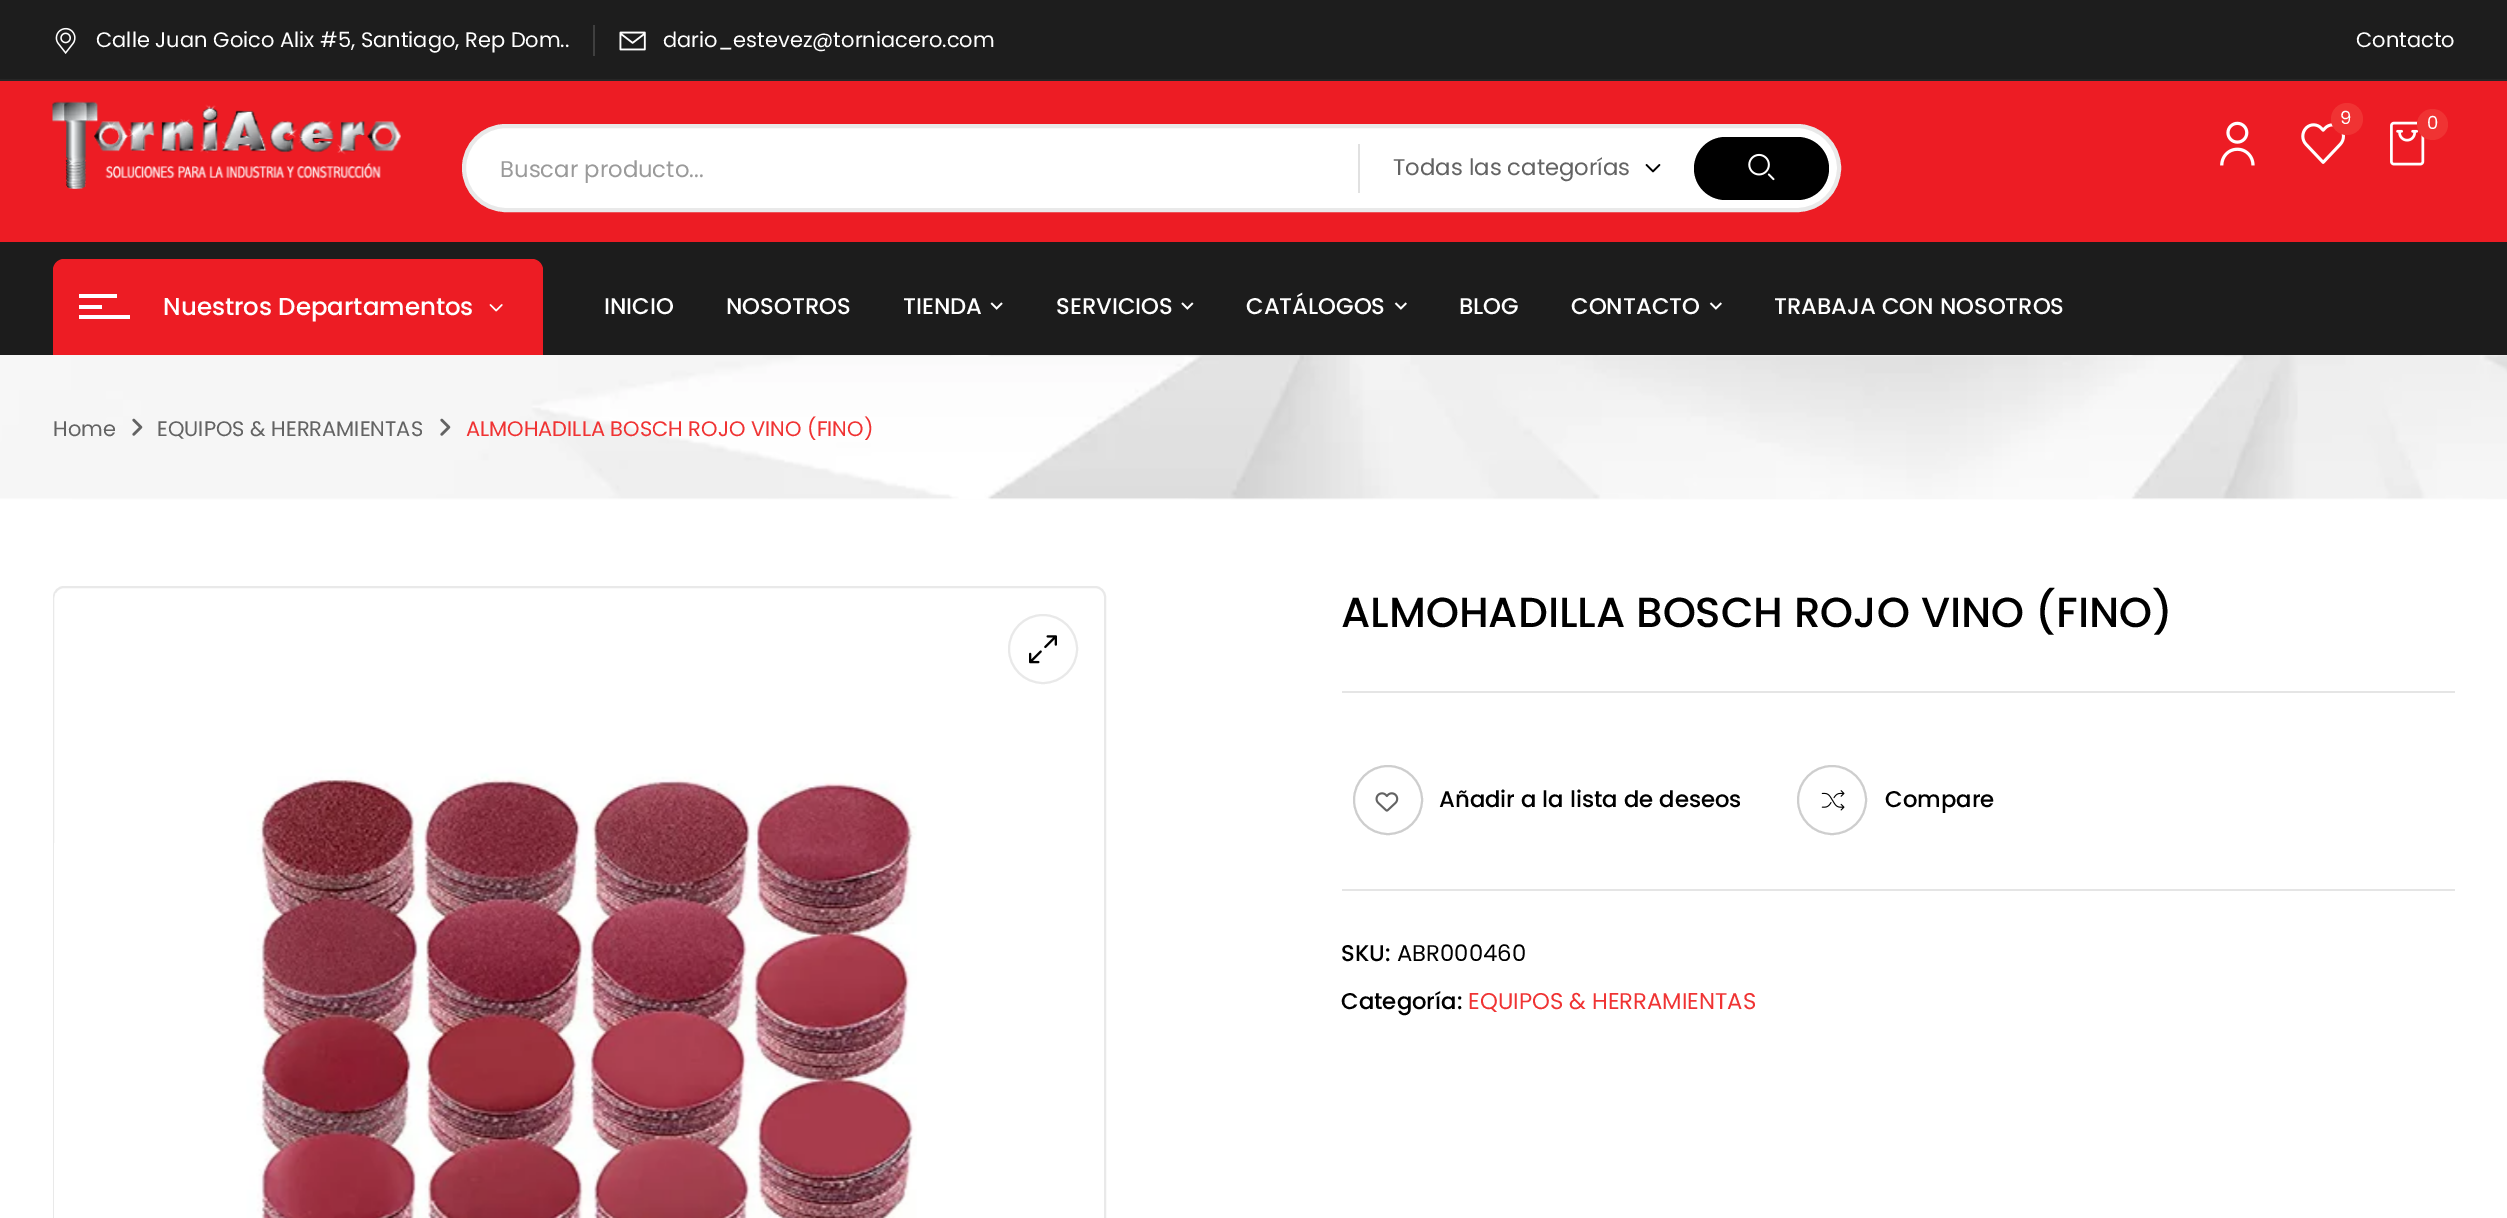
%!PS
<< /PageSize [2507 1218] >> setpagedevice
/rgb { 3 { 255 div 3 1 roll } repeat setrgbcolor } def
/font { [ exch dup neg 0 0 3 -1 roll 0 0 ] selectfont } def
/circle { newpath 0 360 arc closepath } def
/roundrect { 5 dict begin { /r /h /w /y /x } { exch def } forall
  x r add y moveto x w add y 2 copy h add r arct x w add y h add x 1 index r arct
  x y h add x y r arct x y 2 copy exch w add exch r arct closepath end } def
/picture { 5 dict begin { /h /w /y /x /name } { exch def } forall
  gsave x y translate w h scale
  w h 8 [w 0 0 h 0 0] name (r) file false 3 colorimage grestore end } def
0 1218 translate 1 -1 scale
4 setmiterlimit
255 255 255 rgb
0 0 2507 1218 rectfill
29 29 29 rgb
0 0 2507 79 rectfill
(img/1.rgb) 55 27 21 27 picture
63 63 63 rgb
593 25 2 31 rectfill
(img/2.rgb) 619 31 27 20 picture
[
  [0 242 2507 113 28 28 28]
  [0 79 2507 2 38 38 38]
  [0 81 2507 161 237 28 36]
] { aload pop rgb rectfill } forall
(img/3.rgb) 52 101 349 88 picture
(img/4.rgb) 2220 121 35 45 picture
(img/5.rgb) 2301 123 44 41 picture
240 51 51 rgb
2347 119 16 circle fill
(img/6.rgb) 2390 121 35 45 picture
2432.5 124.5 15.5 circle fill
255 255 255 rgb
464 126 1375 84 42 roundrect gsave fill grestore
233 233 233 rgb
4 setlinewidth
stroke
225 225 225 rgb
1358 144 2 49 rectfill
(img/7.rgb) 1645 164 16 9 picture
0 0 0 rgb
1694 137 135 63 31.5 roundrect fill
(img/8.rgb) 1748 153 27 28 picture
237 28 36 rgb
64 259 moveto 532 259 lineto 538 259 543 264 543 270 curveto 543 355 lineto 53 355 lineto 53 270 lineto 53 264 58 259 64 259 curveto closepath fill
[
  [79 305 23 4 255 255 255]
  [79 294 38 4 255 255 255]
  [79 315 51 4 255 255 255]
] { aload pop rgb rectfill } forall
(img/9.rgb) 489 304 14 8 picture
(img/10.rgb) 990 302 13 8 picture
(img/11.rgb) 1181 302 13 8 picture
(img/12.rgb) 1394 302 13 8 picture
(img/12.rgb) 1709 302 13 8 picture
(img/13.rgb) 0 355 2507 145 picture
(img/14.rgb) 132 418 11 18 picture
(img/14.rgb) 440 418 11 18 picture
233 233 233 rgb
2 setlinewidth
54 587 1051 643 10 roundrect stroke
(img/15.rgb) 54 593 863 625 picture
1043 649 34 circle stroke
(img/16.rgb) 1029 635 28 29 picture
229 229 229 rgb
1342 691 1113 2 rectfill
206 206 206 rgb
1388 800 34 circle stroke
(img/17.rgb) 1375 792 24 20 picture
1832 800 34 circle stroke
(img/18.rgb) 1821 790 24 21 picture
229 229 229 rgb
1342 889 1113 2 rectfill
/Poppins-Regular 21 font
255 255 255 rgb
[
  [(Calle Juan Goico Alix #5, Santiago, Rep Dom..) 96 47]
  [(dario_estevez@torniacero.com) 663 47]
  [(Contacto) 2356 47]
] { aload pop moveto show } forall
/Poppins-Regular 18 font
2340 124 moveto (9) show
2427 129 moveto (0) show
/Poppins-Regular 22.75 font
154 154 154 rgb
500 177 moveto (Buscar producto...) show
99 99 99 rgb
1393 175 moveto (Todas las categorías) show
/Poppins-Medium 24.5 font
255 255 255 rgb
163 315 moveto (Nuestros Departamentos) show
/Poppins-Medium 22.75 font
[
  [(INICIO) 604 314]
  [(NOSOTROS) 726 314]
  [(TIENDA) 903 314]
  [(SERVICIOS) 1056 314]
  [(CATÁLOGOS) 1246 314]
  [(BLOG) 1459 314]
  [(CONTACTO) 1571 314]
  [(TRABAJA CON NOSOTROS) 1774 314]
] { aload pop moveto show } forall
/Poppins-Regular 21 font
99 99 99 rgb
53 436 moveto (Home) show
157 436 moveto (EQUIPOS & HERRAMIENTAS) show
240 51 51 rgb
466 436 moveto (ALMOHADILLA BOSCH ROJO VINO \(FINO\)) show
/Poppins-Medium 42 font
0 0 0 rgb
1341 627 moveto (ALMOHADILLA BOSCH ROJO VINO \(FINO\)) show
/Poppins-Medium 22.75 font
[
  [(Añadir a la lista de deseos) 1439 807]
  [(Compare) 1885 807]
  [(SKU:) 1341 961]
] { aload pop moveto show } forall
/Poppins-Regular 22.75 font
1397 961 moveto (ABR000460) show
/Poppins-Medium 22.75 font
1341 1009 moveto (Categoría:) show
/Poppins-Regular 22.75 font
240 51 51 rgb
1468 1009 moveto (EQUIPOS & HERRAMIENTAS) show
showpage
